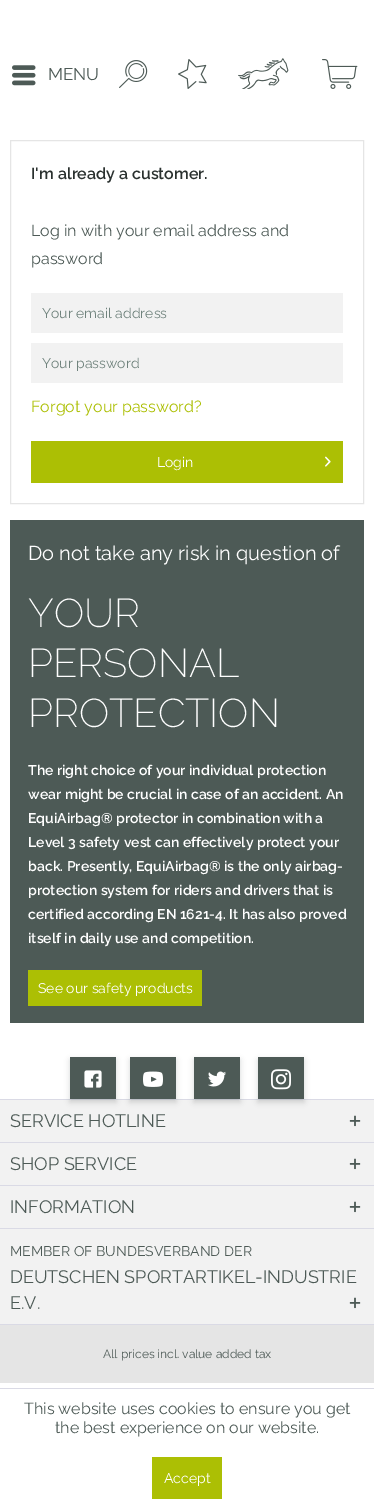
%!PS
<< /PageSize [374 1509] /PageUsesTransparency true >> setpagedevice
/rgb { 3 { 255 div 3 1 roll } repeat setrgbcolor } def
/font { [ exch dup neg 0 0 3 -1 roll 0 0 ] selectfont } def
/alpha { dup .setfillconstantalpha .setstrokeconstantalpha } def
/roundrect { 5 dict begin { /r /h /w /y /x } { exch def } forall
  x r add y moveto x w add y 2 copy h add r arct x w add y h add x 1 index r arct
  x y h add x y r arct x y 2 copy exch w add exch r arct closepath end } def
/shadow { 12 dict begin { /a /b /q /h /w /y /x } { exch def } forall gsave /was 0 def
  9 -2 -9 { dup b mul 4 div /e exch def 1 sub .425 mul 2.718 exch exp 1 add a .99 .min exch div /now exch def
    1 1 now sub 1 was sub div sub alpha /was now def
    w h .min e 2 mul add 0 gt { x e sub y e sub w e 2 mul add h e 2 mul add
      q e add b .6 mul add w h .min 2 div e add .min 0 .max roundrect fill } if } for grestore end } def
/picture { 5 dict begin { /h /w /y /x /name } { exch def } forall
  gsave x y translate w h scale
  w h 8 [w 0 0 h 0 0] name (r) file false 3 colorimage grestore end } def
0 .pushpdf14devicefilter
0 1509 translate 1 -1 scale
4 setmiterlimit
255 255 255 rgb
0 0 374 1509 rectfill
(img/1.rgb) 12 65 24 21 picture
(img/2.rgb) 119 60 29 28 picture
(img/3.rgb) 178 59 29 30 picture
(img/4.rgb) 238 58 51 31 picture
(img/5.rgb) 322 59 36 30 picture
229 229 229 rgb
10.5 140.5 353 363 rectstroke
[
  [31 293 312 40 242 242 242]
  [31 343 312 40 242 242 242]
  [31 441 312 42 172 191 4]
] { aload pop rgb rectfill } forall
(img/6.rgb) 325 456 6 11 picture
[
  [10 520 354 503 77 90 86]
  [28 970 174 36 172 191 4]
  [0 1100 374 224 242 242 242]
  [0 1099 374 1 218 218 229]
] { aload pop rgb rectfill } forall
77 90 86 rgb
70 1060 46 42 0 3 0.25 shadow
70 1057 46 42 rectfill
(img/7.rgb) 84 1070 18 18 picture
130 1060 46 42 0 3 0.25 shadow
130 1057 46 42 rectfill
(img/8.rgb) 143 1071 20 16 picture
194 1060 46 42 0 3 0.25 shadow
194 1057 46 42 rectfill
(img/9.rgb) 208 1071 18 16 picture
258 1060 46 42 0 3 0.25 shadow
258 1057 46 42 rectfill
(img/10.rgb) 271 1069 20 21 picture
(img/11.rgb) 349 1115 12 12 picture
218 218 229 rgb
0 1142 374 1 rectfill
(img/11.rgb) 349 1158 12 12 picture
0 1185 374 1 rectfill
(img/11.rgb) 349 1201 12 12 picture
0 1228 374 1 rectfill
0 1324 374 1 rectfill
(img/11.rgb) 349 1297 12 12 picture
[
  [0 1325 374 58 229 229 229]
  [0 1388 374 1 218 218 229]
  [152 1457 70 42 172 191 4]
] { aload pop rgb rectfill } forall
/Raleway-Regular 17 font
77 90 86 rgb
48 80 moveto (MENU) show
/Raleway-SemiBold 16 font
42 49 47 rgb
31 179 moveto (I'm already a customer.) show
/Raleway-Regular 16 font
77 90 86 rgb
31 236 moveto (Log in with your email address and) show
31 264 moveto (password) show
/Raleway-Regular 14 font
112 131 125 rgb
42 318 moveto (Your email address) show
42 368 moveto (Your password) show
/Raleway-Regular 16 font
172 191 4 rgb
31 412 moveto (Forgot your password?) show
/Raleway-Regular 14 font
255 255 255 rgb
157 467 moveto (Login) show
/Raleway-Regular 20 font
28 560 moveto (Do not take any risk in question of) show
/Raleway-ExtraLight 40 font
[
  [(YOUR) 28 627]
  [(PERSONAL) 28 677]
  [(PROTECTION) 28 727]
] { aload pop moveto show } forall
/Raleway-SemiBold 14 font
[
  [(The right choice of your individual protection) 28 775]
  [(wear might be crucial in case of an accident. An) 28 799]
  [(EquiAirbag® protector in combination with a) 28 823]
  [(Level 3 safety vest can effectively protect your) 28 847]
  [(back. Presently, EquiAirbag® is the only airbag-) 28 871]
  [(protection system for riders and drivers that is) 28 895]
  [(certified according EN 1621-4. It has also proved) 28 919]
  [(itself in daily use and competition.) 28 943]
] { aload pop moveto show } forall
/Raleway-Regular 14 font
38 993 moveto (See our safety products) show
/Raleway-Regular 18 font
77 90 86 rgb
[
  [(SERVICE HOTLINE) 10 1127]
  [(SHOP SERVICE) 10 1170]
  [(INFORMATION) 10 1213]
] { aload pop moveto show } forall
/Raleway-Regular 14 font
10 1256 moveto (MEMBER OF BUNDESVERBAND DER) show
/Raleway-Regular 18 font
10 1283 moveto (DEUTSCHEN SPORTARTIKEL-INDUSTRIE) show
10 1309 moveto (E.V.) show
/Raleway-Regular 12 font
103 1358 moveto (All prices incl. value added tax) show
/Raleway-Regular 16 font
24 1414 moveto (This website uses cookies to ensure you get) show
55 1433 moveto (the best experience on our website.) show
/Raleway-Regular 14 font
255 255 255 rgb
164 1483 moveto (Accept) show
.poppdf14devicefilter showpage
